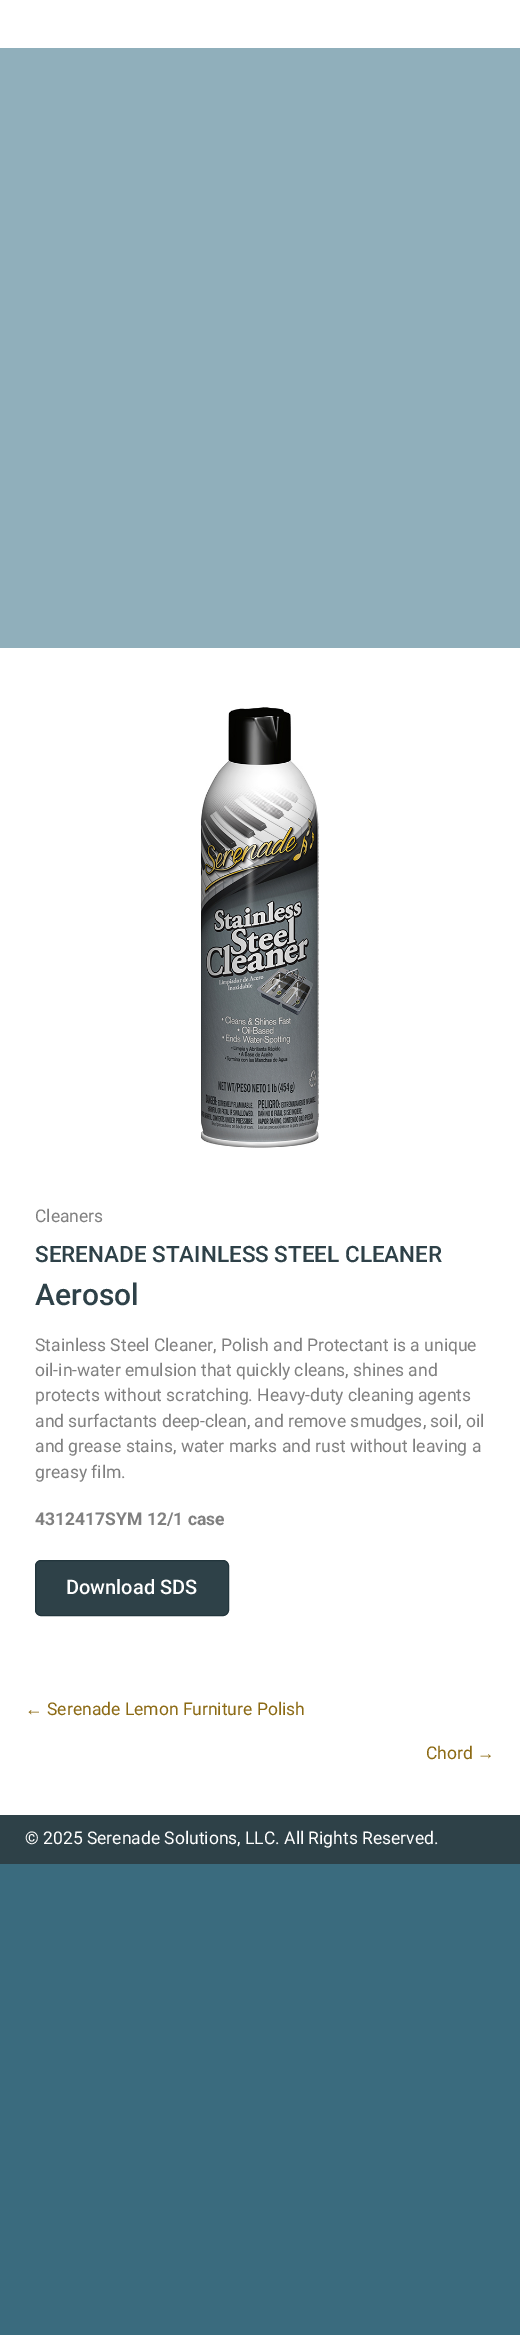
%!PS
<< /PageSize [520 2335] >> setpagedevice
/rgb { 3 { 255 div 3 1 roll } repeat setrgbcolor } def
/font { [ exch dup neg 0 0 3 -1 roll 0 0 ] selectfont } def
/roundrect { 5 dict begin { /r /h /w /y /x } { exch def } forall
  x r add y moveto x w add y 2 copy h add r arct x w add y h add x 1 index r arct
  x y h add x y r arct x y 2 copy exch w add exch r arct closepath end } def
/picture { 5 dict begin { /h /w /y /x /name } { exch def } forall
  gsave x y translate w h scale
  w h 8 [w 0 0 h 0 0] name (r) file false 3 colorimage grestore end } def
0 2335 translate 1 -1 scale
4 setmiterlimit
58 107 126 rgb
0 0 520 2335 rectfill
[
  [0 0 520 48 255 255 255]
  [0 48 520 600 144 175 187]
  [0 648 520 1167 255 255 255]
] { aload pop rgb rectfill } forall
(img/1.rgb) 201 707 118 441 picture
46 65 72 rgb
35.5 1560.5 193 55 5.5 roundrect gsave fill grestore
34 53 60 rgb
stroke
46 65 72 rgb
0 1815 520 49 rectfill
/Roboto-Regular 17.5 font
128 128 128 rgb
35 1222 moveto (Cleaners) show
/Roboto-Medium 22.5 font
46 65 72 rgb
35 1262 moveto (SERENADE STAINLESS STEEL CLEANER) show
/Roboto-Medium 30 font
35 1305 moveto (Aerosol) show
/Roboto-Regular 17.5 font
128 128 128 rgb
[
  [(Stainless Steel Cleaner, Polish and Protectant is a unique) 35 1351]
  [(oil-in-water emulsion that quickly cleans, shines and) 35 1376]
  [(protects without scratching. Heavy-duty cleaning agents) 35 1401]
  [(and surfactants deep-clean, and remove smudges, soil, oil) 35 1427]
  [(and grease stains, water marks and rust without leaving a) 35 1452]
  [(greasy film.) 35 1478]
] { aload pop moveto show } forall
/Roboto-Bold 17.5 font
35 1525 moveto (4312417SYM 12/1 case) show
/Roboto-Medium 20 font
255 255 255 rgb
66 1594 moveto (Download SDS) show
/LiberationSans-Regular 17.5 font
140 106 20 rgb
25 1715 moveto (←) show
/Roboto-Regular 17.5 font
47 1715 moveto (Serenade Lemon Furniture Polish) show
426 1759 moveto (Chord) show
/LiberationSans-Regular 17.5 font
477 1759 moveto (→) show
/Roboto-Regular 17.5 font
255 255 255 rgb
25 1844 moveto (© 2025 Serenade Solutions, LLC. All Rights Reserved.) show
showpage
